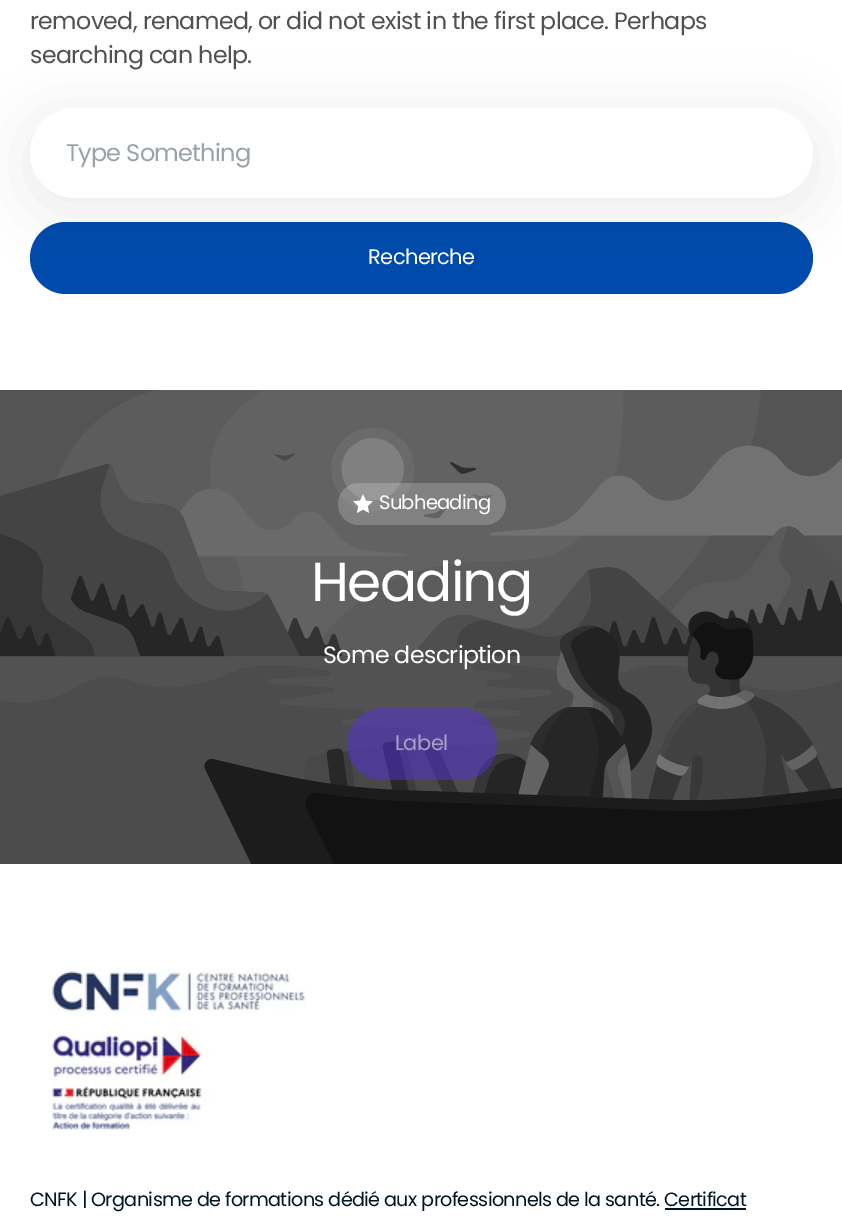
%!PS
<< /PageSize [842 1224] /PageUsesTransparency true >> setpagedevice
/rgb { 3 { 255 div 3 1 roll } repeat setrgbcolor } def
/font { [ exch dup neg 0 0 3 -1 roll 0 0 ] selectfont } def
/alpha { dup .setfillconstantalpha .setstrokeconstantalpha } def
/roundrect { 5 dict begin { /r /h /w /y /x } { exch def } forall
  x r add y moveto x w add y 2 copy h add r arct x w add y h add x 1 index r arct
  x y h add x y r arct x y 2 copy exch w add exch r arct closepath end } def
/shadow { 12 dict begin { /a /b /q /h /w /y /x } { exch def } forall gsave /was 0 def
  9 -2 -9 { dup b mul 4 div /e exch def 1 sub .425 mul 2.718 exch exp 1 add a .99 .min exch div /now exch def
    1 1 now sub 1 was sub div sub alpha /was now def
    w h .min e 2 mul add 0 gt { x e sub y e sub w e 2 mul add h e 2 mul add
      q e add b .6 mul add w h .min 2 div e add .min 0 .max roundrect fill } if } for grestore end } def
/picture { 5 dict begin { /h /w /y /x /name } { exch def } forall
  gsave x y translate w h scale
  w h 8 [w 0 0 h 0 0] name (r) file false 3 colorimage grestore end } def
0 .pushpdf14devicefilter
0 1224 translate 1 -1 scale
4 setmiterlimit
255 255 255 rgb
0 0 842 1224 rectfill
0 74 173 rgb
30 222 783 72 36 roundrect fill
1 22 36 rgb
30 120 783 90 45 30 0.08 shadow
255 255 255 rgb
30 108 783 90 45 roundrect fill
(img/1.rgb) 0 390 842 474 picture
0.2 alpha
338 483 168 42 21 roundrect fill
1 alpha
(img/2.rgb) 353 494 20 19 picture
0.5 alpha
82 48 218 rgb
347 708 150 72 36 roundrect fill
1 alpha
(img/3.rgb) 49 968 257 163 picture
1 22 36 rgb
665 1208 81 2 rectfill
/Poppins-Regular 23.7 font
81 81 81 rgb
30 29 moveto -0.62 0 (removed, renamed, or did not exist in the first place. Perhaps) ashow
30 63 moveto -0.62 0 (searching can help.) ashow
/Poppins-Regular 24 font
153 162 167 rgb
66 161 moveto -0.75 0 (Type Something) ashow
/Poppins-Regular 21 font
255 255 255 rgb
368 264 moveto -0.6 0 (Recherche) ashow
/Poppins-Regular 19.5 font
379 509 moveto -0.75 0 (Subheading) ashow
/Poppins-Regular 55 font
311 601 moveto -1.75 0 (Heading) ashow
/Poppins-Regular 23.7 font
323 663 moveto -0.62 0 (Some description) ashow
/Poppins-Regular 21 font
166 157 200 rgb
395 750 moveto -0.6 0 (Label) ashow
/Poppins-Regular 19.2 font
1 22 36 rgb
30 1206 moveto -0.62 0 (CNFK | Organisme de formations dédié aux professionnels de la santé. Certificat) ashow
.poppdf14devicefilter showpage
